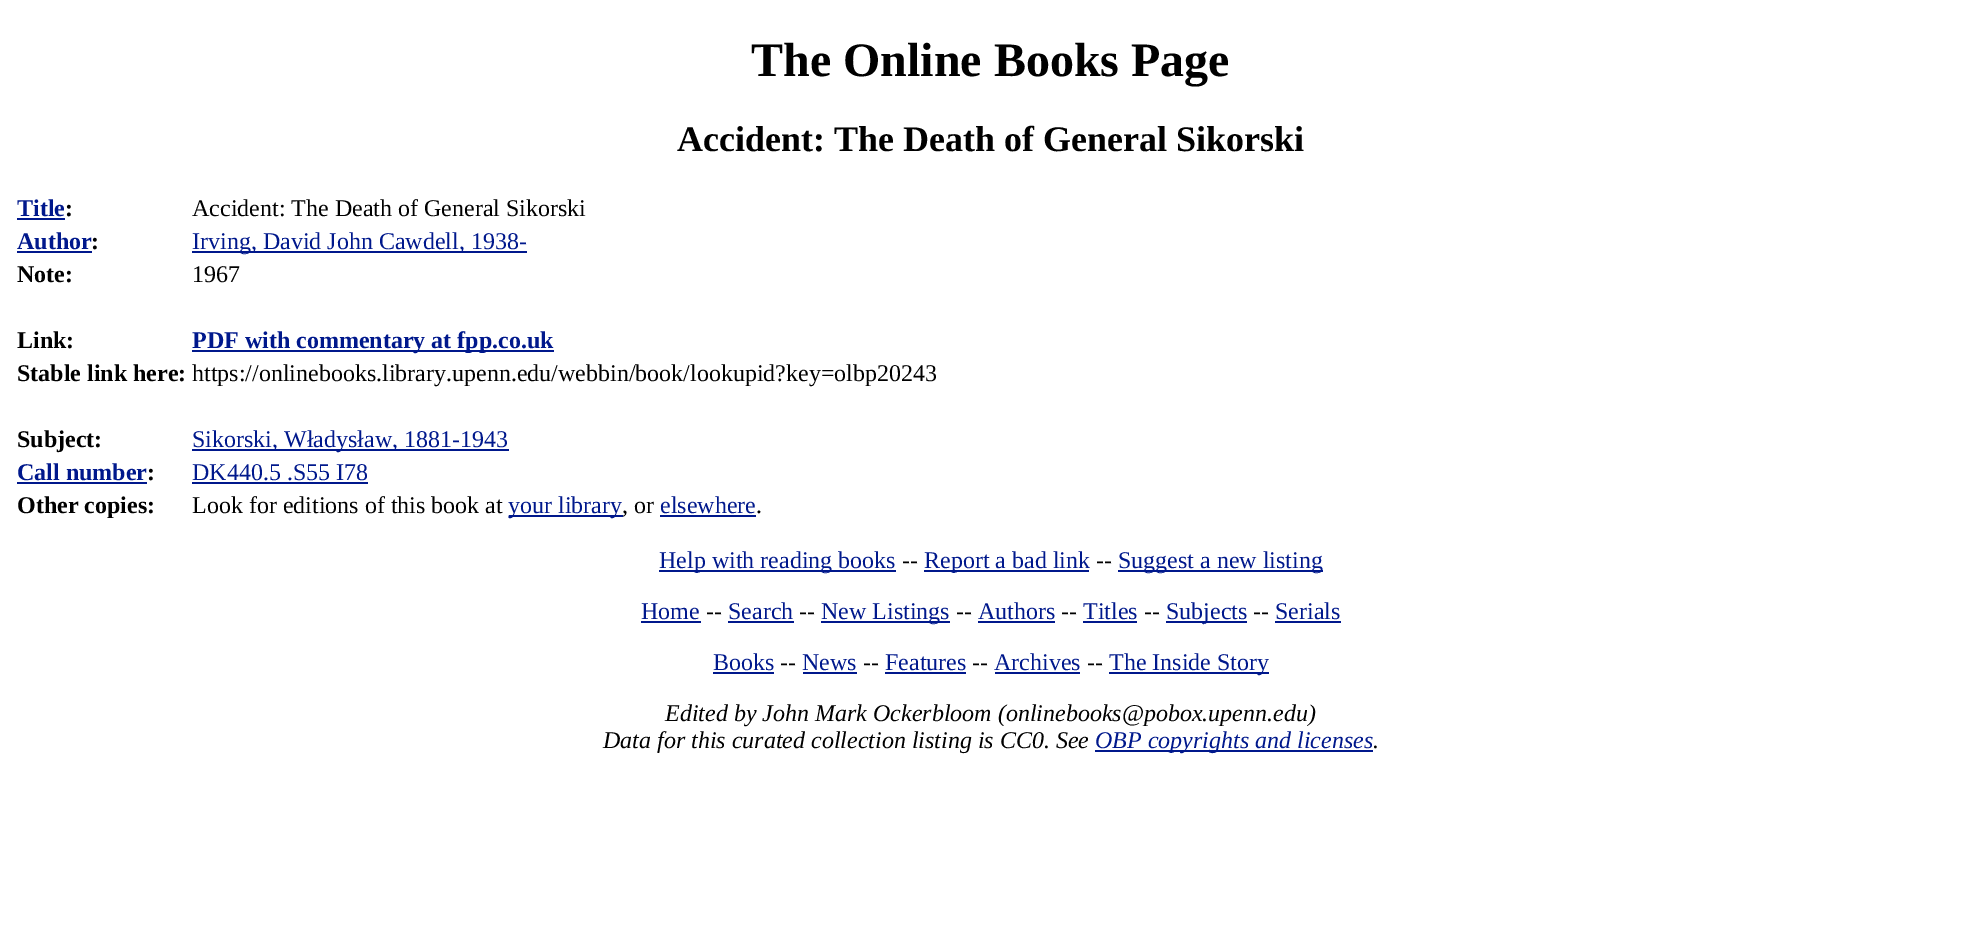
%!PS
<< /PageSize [1981 931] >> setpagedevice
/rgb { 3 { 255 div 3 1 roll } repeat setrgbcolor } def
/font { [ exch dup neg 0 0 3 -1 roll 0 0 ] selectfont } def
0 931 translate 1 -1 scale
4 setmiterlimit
255 255 255 rgb
0 0 1981 931 rectfill
[
  [17 218 48 2 0 24 140]
  [17 251 75 2 0 24 140]
  [192 251 335 2 0 24 140]
  [192 350 362 2 0 24 140]
  [192 449 317 2 0 24 140]
  [17 482 130 2 0 24 140]
  [192 482 176 2 0 24 140]
  [509 515 114 2 0 24 140]
  [660 515 96 2 0 24 140]
  [659 570 237 2 0 24 140]
  [924 570 165 2 0 24 140]
  [1118 570 205 2 0 24 140]
  [641 621 60 2 0 24 140]
  [728 621 66 2 0 24 140]
  [821 621 129 2 0 24 140]
  [978 621 77 2 0 24 140]
  [1083 621 54 2 0 24 140]
  [1166 621 81 2 0 24 140]
  [1275 621 66 2 0 24 140]
  [713 672 61 2 0 24 140]
  [803 672 54 2 0 24 140]
  [885 672 81 2 0 24 140]
  [995 672 85 2 0 24 140]
  [1109 672 160 2 0 24 140]
  [1095 750 278 2 0 24 140]
] { aload pop rgb rectfill } forall
/LiberationSerif-Bold 48 font
0 0 0 rgb
751 76 moveto (The Online Books Page) show
/LiberationSerif-Bold 36 font
677 151 moveto (Accident: The Death of General Sikorski) show
/LiberationSerif-Bold 24 font
0 24 140 rgb
17 216 moveto (Title) show
0 0 0 rgb
65 216 moveto (:) show
/LiberationSerif-Regular 24 font
192 216 moveto (Accident: The Death of General Sikorski) show
/LiberationSerif-Bold 24 font
0 24 140 rgb
17 249 moveto (Author) show
0 0 0 rgb
91 249 moveto (:) show
/LiberationSerif-Regular 24 font
0 24 140 rgb
192 249 moveto (Irving, David John Cawdell, 1938-) show
/LiberationSerif-Bold 24 font
0 0 0 rgb
17 282 moveto (Note:) show
/LiberationSerif-Regular 24 font
192 282 moveto (1967) show
/LiberationSerif-Bold 24 font
17 348 moveto (Link:) show
0 24 140 rgb
192 348 moveto (PDF with commentary at fpp.co.uk) show
0 0 0 rgb
17 381 moveto (Stable link here:) show
/LiberationSerif-Regular 24 font
192 381 moveto (https://onlinebooks.library.upenn.edu/webbin/book/lookupid?key=olbp20243) show
/LiberationSerif-Bold 24 font
17 447 moveto (Subject:) show
/LiberationSerif-Regular 24 font
0 24 140 rgb
192 447 moveto (Sikorski, Władysław, 1881-1943) show
/LiberationSerif-Bold 24 font
17 480 moveto (Call number) show
0 0 0 rgb
147 480 moveto (:) show
/LiberationSerif-Regular 24 font
0 24 140 rgb
192 480 moveto (DK440.5 .S55 I78) show
/LiberationSerif-Bold 24 font
0 0 0 rgb
17 513 moveto (Other copies:) show
/LiberationSerif-Regular 24 font
192 513 moveto (Look for editions of this book at) show
0 24 140 rgb
508 513 moveto (your library) show
0 0 0 rgb
622 513 moveto (, or) show
0 24 140 rgb
660 513 moveto (elsewhere) show
0 0 0 rgb
756 513 moveto (.) show
0 24 140 rgb
659 568 moveto (Help with reading books) show
0 0 0 rgb
902 568 moveto (--) show
0 24 140 rgb
924 568 moveto (Report a bad link) show
0 0 0 rgb
1096 568 moveto (--) show
0 24 140 rgb
1118 568 moveto (Suggest a new listing) show
641 619 moveto (Home) show
0 0 0 rgb
706 619 moveto (--) show
0 24 140 rgb
728 619 moveto (Search) show
0 0 0 rgb
799 619 moveto (--) show
0 24 140 rgb
821 619 moveto (New Listings) show
0 0 0 rgb
956 619 moveto (--) show
0 24 140 rgb
978 619 moveto (Authors) show
0 0 0 rgb
1061 619 moveto (--) show
0 24 140 rgb
1083 619 moveto (Titles) show
0 0 0 rgb
1144 619 moveto (--) show
0 24 140 rgb
1166 619 moveto (Subjects) show
0 0 0 rgb
1253 619 moveto (--) show
0 24 140 rgb
1275 619 moveto (Serials) show
713 670 moveto (Books) show
0 0 0 rgb
780 670 moveto (--) show
0 24 140 rgb
802 670 moveto (News) show
0 0 0 rgb
863 670 moveto (--) show
0 24 140 rgb
885 670 moveto (Features) show
0 0 0 rgb
972 670 moveto (--) show
0 24 140 rgb
994 670 moveto (Archives) show
0 0 0 rgb
1087 670 moveto (--) show
0 24 140 rgb
1109 670 moveto (The Inside Story) show
/LiberationSerif-Italic 24 font
0 0 0 rgb
665 721 moveto (Edited by John Mark Ockerbloom \(onlinebooks@pobox.upenn.edu\)) show
603 748 moveto (Data for this curated collection listing is CC0. See) show
0 24 140 rgb
1095 748 moveto (OBP copyrights and licenses) show
0 0 0 rgb
1373 748 moveto (.) show
showpage
